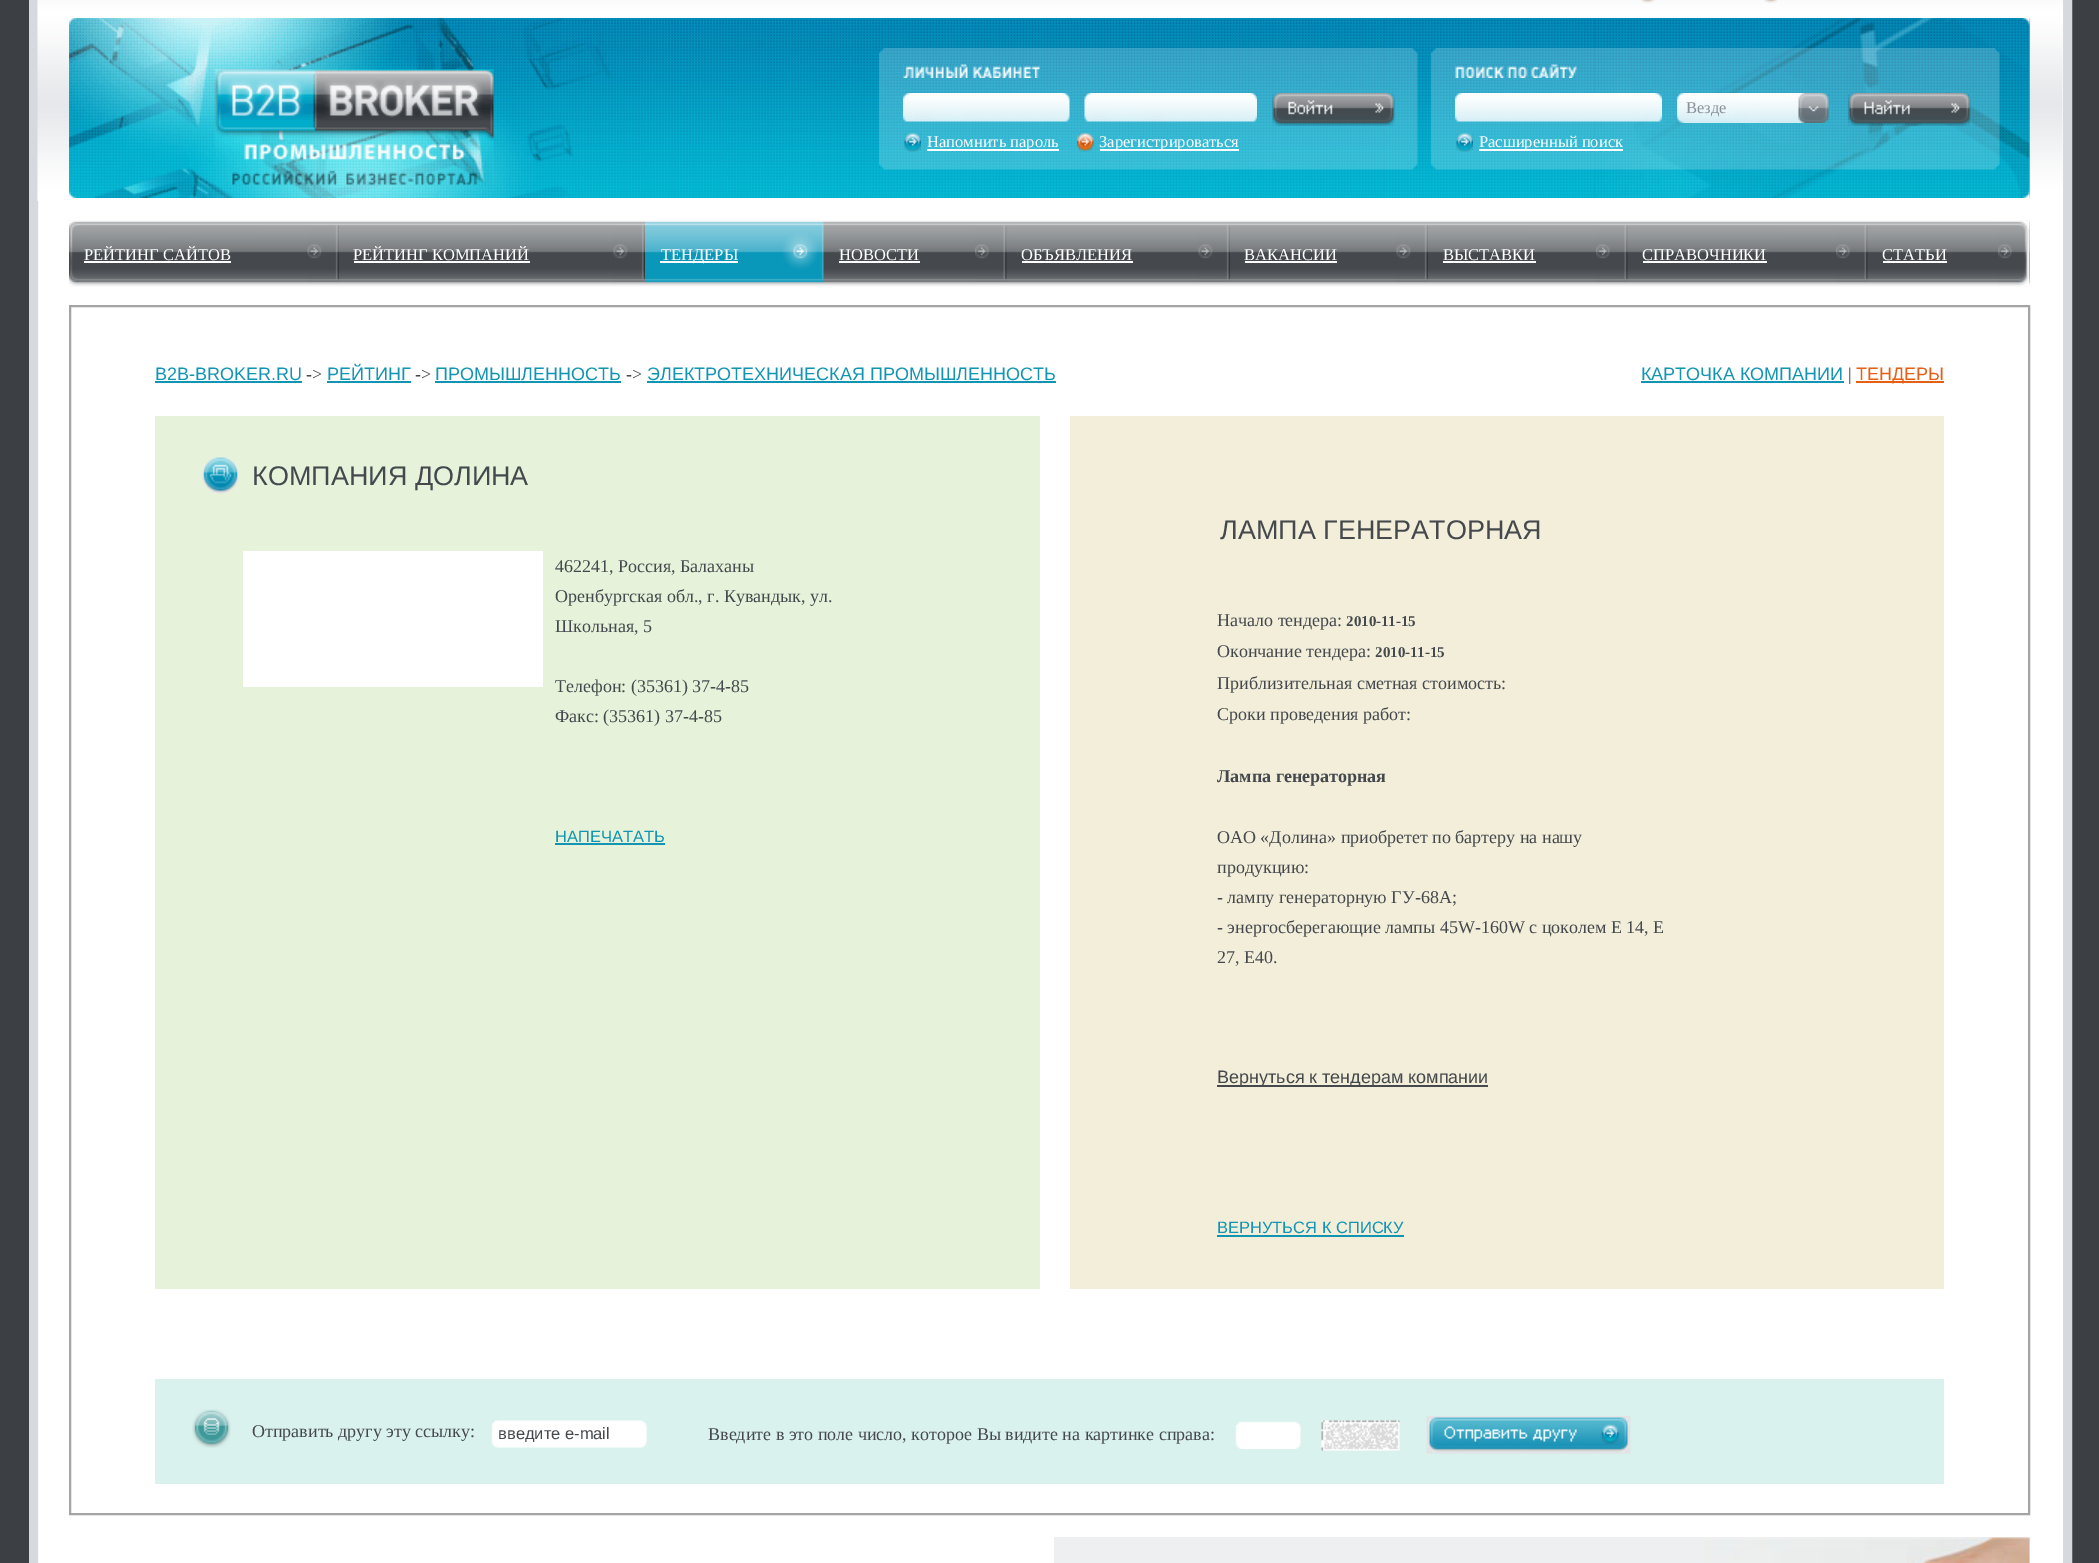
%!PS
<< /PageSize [2099 1563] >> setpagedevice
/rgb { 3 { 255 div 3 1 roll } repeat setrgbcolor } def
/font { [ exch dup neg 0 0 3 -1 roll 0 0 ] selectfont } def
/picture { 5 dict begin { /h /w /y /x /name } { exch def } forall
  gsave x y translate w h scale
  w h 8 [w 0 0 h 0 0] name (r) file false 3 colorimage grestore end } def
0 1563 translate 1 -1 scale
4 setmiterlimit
60 64 68 rgb
0 0 2099 1563 rectfill
255 255 255 rgb
33.5 -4.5 moveto 2067.5 -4.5 lineto 2067.5 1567.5 lineto 33.5 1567.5 lineto closepath gsave fill grestore
214 218 222 rgb
9 setlinewidth
stroke
(img/1.rgb) 37 0 2026 201 picture
(img/2.rgb) 1641 0 14 3 picture
(img/2.rgb) 1764 0 14 3 picture
(img/3.rgb) 1384 18 646 180 picture
(img/4.rgb) 69 18 1316 180 picture
(img/5.rgb) 1594 18 436 180 picture
(img/6.rgb) 214 69 280 117 picture
(img/7.rgb) 879 48 539 122 picture
(img/8.rgb) 903 64 137 14 picture
(img/9.rgb) 903 93 167 29 picture
(img/10.rgb) 1084 93 173 29 picture
(img/11.rgb) 1272 93 123 33 picture
(img/12.rgb) 904 133 17 19 picture
255 255 255 rgb
927 149 132 2 rectfill
(img/13.rgb) 1077 133 17 19 picture
1100 149 139 2 rectfill
(img/14.rgb) 1431 48 569 122 picture
(img/15.rgb) 1455 64 122 14 picture
(img/16.rgb) 1455 93 207 29 picture
(img/17.rgb) 1677 93 152 30 picture
(img/18.rgb) 1848 93 123 33 picture
(img/19.rgb) 1456 133 17 19 picture
1479 149 144 2 rectfill
(img/20.rgb) 69 220 1961 67 picture
(img/21.rgb) 69 221 10 65 picture
(img/22.rgb) 307 225 32 57 picture
84 261 147 2 rectfill
(img/23.rgb) 613 225 32 57 picture
354 261 176 2 rectfill
(img/24.rgb) 645 221 179 62 picture
660 261 78 2 rectfill
(img/25.rgb) 975 225 32 57 picture
839 261 81 2 rectfill
(img/26.rgb) 1198 225 32 57 picture
1022 261 111 2 rectfill
(img/27.rgb) 1396 225 32 57 picture
1245 261 92 2 rectfill
(img/25.rgb) 1596 225 32 57 picture
1443 261 93 2 rectfill
(img/28.rgb) 1836 225 32 57 picture
1643 261 124 2 rectfill
(img/29.rgb) 1998 221 32 64 picture
1883 261 64 2 rectfill
(img/30.rgb) 2019 221 11 65 picture
162 164 166 rgb
2 setlinewidth
70 306 1959 1208 rectstroke
[
  [155 381 147 2 18 149 179]
  [327 381 84 2 18 149 179]
  [435 381 186 2 18 149 179]
  [647 381 409 2 18 149 179]
  [1641 381 203 2 18 149 179]
  [1856 381 88 2 230 95 23]
  [155 416 885 873 230 242 218]
] { aload pop rgb rectfill } forall
(img/31.rgb) 202 457 37 37 picture
[
  [243 551 300 136 255 255 255]
  [555 843 110 2 18 149 179]
  [1070 416 874 873 242 238 218]
  [1217 1085 271 2 69 73 77]
  [1217 1235 187 2 18 149 179]
  [155 1379 1789 105 218 242 238]
] { aload pop rgb rectfill } forall
(img/32.rgb) 192 1409 39 39 picture
(img/33.rgb) 491 1420 156 28 picture
(img/34.rgb) 1235 1421 66 28 picture
(img/35.rgb) 1321 1420 79 31 picture
(img/36.rgb) 1426 1416 205 38 picture
238 239 241 rgb
1054 1537 976 26 rectfill
(img/37.rgb) 1704 1537 326 26 picture
/LiberationSerif-Regular 16.5 font
255 255 255 rgb
927 147 moveto (Напомнить пароль) show
1099 147 moveto (Зарегистрироваться) show
138 145 153 rgb
1686 113 moveto (Везде) show
255 255 255 rgb
[
  [(Расширенный поиск) 1479 147]
  [(РЕЙТИНГ САЙТОВ) 84 260]
  [(РЕЙТИНГ КОМПАНИЙ) 353 260]
  [(ТЕНДЕРЫ) 661 260]
  [(НОВОСТИ) 839 260]
  [(ОБЪЯВЛЕНИЯ) 1021 260]
  [(ВАКАНСИИ) 1244 260]
  [(ВЫСТАВКИ) 1443 260]
  [(СПРАВОЧНИКИ) 1642 260]
  [(СТАТЬИ) 1882 260]
] { aload pop moveto show } forall
/LiberationSans-Regular 18 font
18 149 179 rgb
155 380 moveto (B2B-BROKER.RU) show
/LiberationSerif-Regular 18 font
69 73 77 rgb
306 380 moveto (->) show
/LiberationSans-Regular 18 font
18 149 179 rgb
327 380 moveto (РЕЙТИНГ) show
/LiberationSerif-Regular 18 font
69 73 77 rgb
415 380 moveto (->) show
/LiberationSans-Regular 18 font
18 149 179 rgb
435 380 moveto (ПРОМЫШЛЕННОСТЬ) show
/LiberationSerif-Regular 18 font
69 73 77 rgb
626 380 moveto (->) show
/LiberationSans-Regular 18 font
18 149 179 rgb
647 380 moveto (ЭЛЕКТРОТЕХНИЧЕСКАЯ ПРОМЫШЛЕННОСТЬ) show
1641 380 moveto (КАРТОЧКА КОМПАНИИ) show
/LiberationSerif-Regular 18 font
69 73 77 rgb
1848 380 moveto (|) show
/LiberationSans-Regular 18 font
230 95 23 rgb
1856 380 moveto (ТЕНДЕРЫ) show
/LiberationSans-Regular 27 font
69 73 77 rgb
252 485 moveto (КОМПАНИЯ ДОЛИНА) show
/LiberationSerif-Regular 18 font
[
  [(462241, Россия, Балаханы) 555 572]
  [(Оренбургская обл., г. Кувандык, ул.) 555 602]
  [(Школьная, 5) 555 632]
  [(Телефон: \(35361\) 37-4-85) 555 692]
  [(Факс: \(35361\) 37-4-85) 555 722]
] { aload pop moveto show } forall
/LiberationSans-Regular 16.5 font
18 149 179 rgb
555 842 moveto (НАПЕЧАТАТЬ) show
/LiberationSans-Regular 27 font
69 73 77 rgb
1220 539 moveto (ЛАМПА ГЕНЕРАТОРНАЯ) show
/LiberationSerif-Regular 18 font
1217 626 moveto (Начало тендера:) show
/LiberationSerif-Bold 15 font
1346 626 moveto (2010-11-15) show
/LiberationSerif-Regular 18 font
1217 657 moveto (Окончание тендера:) show
/LiberationSerif-Bold 15 font
1375 657 moveto (2010-11-15) show
/LiberationSerif-Regular 18 font
1217 689 moveto (Приблизительная сметная стоимость:) show
1217 720 moveto (Сроки проведения работ:) show
/LiberationSerif-Bold 18 font
1217 782 moveto (Лампа генераторная) show
/LiberationSerif-Regular 18 font
[
  [(ОАО «Долина» приобретет по бартеру на нашу) 1217 843]
  [(продукцию:) 1217 873]
  [(- лампу генераторную ГУ-68А;) 1217 903]
  [(- энергосберегающие лампы 45W-160W c цоколем E 14, Е) 1217 933]
  [(27, E40.) 1217 963]
] { aload pop moveto show } forall
/LiberationSans-Regular 18 font
1217 1083 moveto (Вернуться к тендерам компании) show
/LiberationSans-Regular 16.5 font
18 149 179 rgb
1217 1233 moveto (ВЕРНУТЬСЯ К СПИСКУ) show
/LiberationSerif-Regular 18 font
69 73 77 rgb
252 1437 moveto (Отправить другу эту ссылку:) show
gsave
498 1424 158 18 rectclip
/LiberationSans-Regular 16.5 font
498 1439 moveto (введите e-mail) show
grestore
708 1440 moveto (Введите в это поле число, которое Вы видите на картинке справа:) show
showpage
